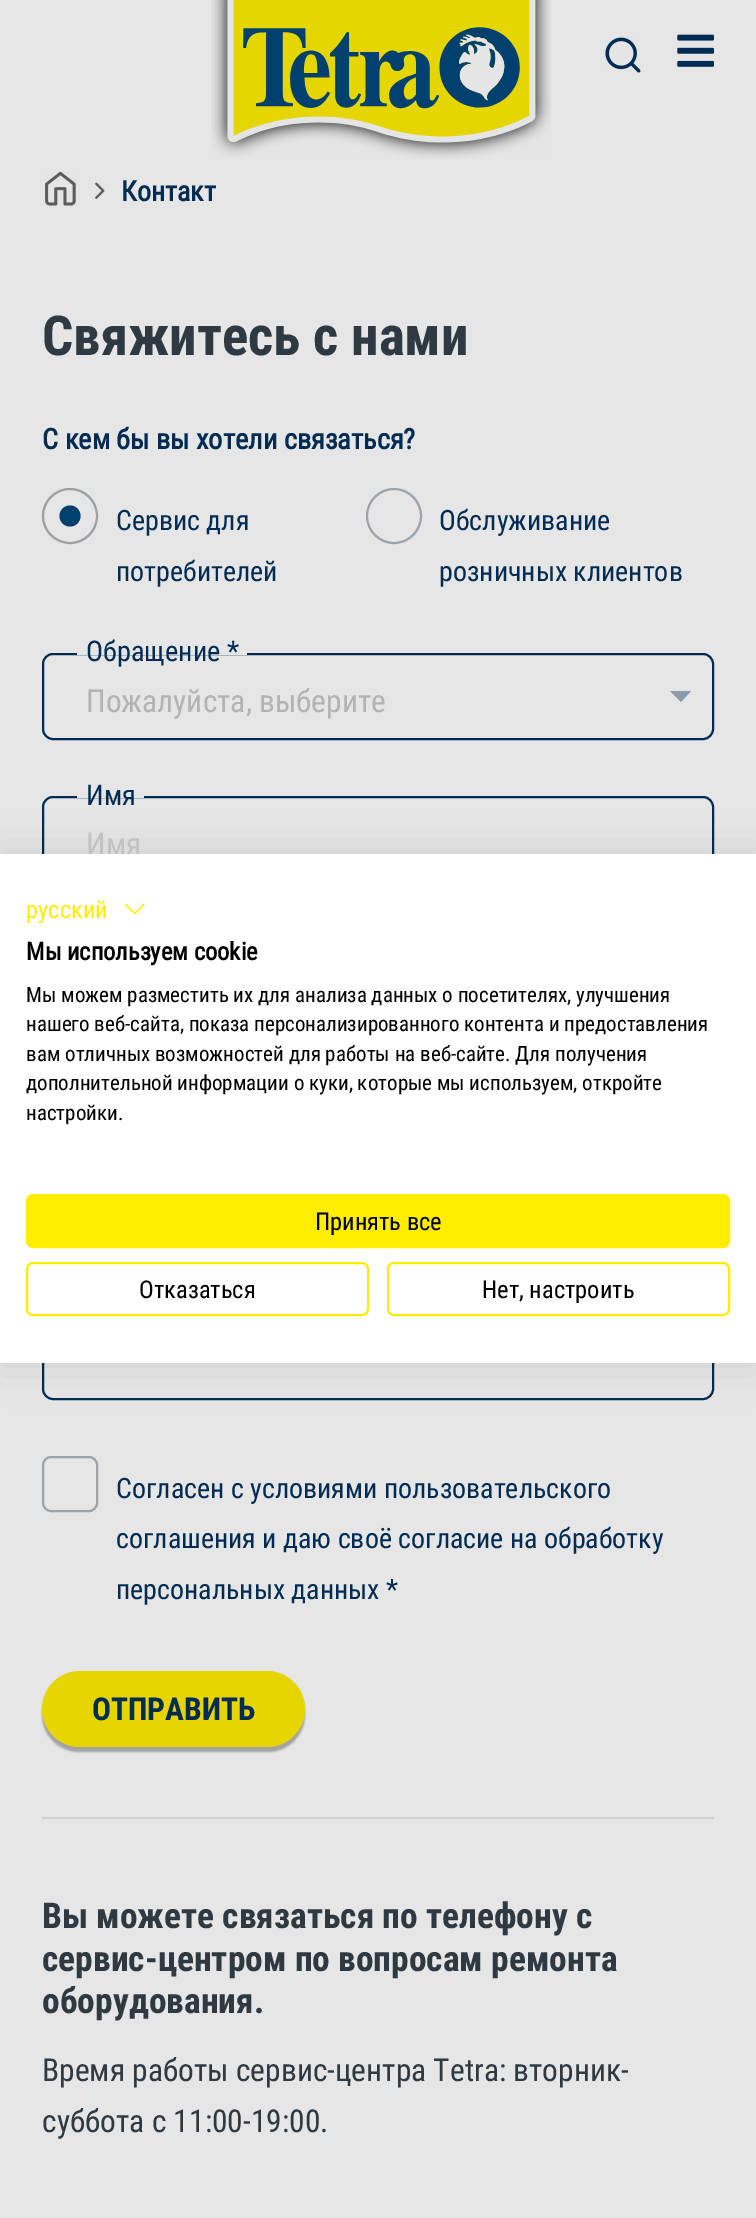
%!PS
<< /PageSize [756 2218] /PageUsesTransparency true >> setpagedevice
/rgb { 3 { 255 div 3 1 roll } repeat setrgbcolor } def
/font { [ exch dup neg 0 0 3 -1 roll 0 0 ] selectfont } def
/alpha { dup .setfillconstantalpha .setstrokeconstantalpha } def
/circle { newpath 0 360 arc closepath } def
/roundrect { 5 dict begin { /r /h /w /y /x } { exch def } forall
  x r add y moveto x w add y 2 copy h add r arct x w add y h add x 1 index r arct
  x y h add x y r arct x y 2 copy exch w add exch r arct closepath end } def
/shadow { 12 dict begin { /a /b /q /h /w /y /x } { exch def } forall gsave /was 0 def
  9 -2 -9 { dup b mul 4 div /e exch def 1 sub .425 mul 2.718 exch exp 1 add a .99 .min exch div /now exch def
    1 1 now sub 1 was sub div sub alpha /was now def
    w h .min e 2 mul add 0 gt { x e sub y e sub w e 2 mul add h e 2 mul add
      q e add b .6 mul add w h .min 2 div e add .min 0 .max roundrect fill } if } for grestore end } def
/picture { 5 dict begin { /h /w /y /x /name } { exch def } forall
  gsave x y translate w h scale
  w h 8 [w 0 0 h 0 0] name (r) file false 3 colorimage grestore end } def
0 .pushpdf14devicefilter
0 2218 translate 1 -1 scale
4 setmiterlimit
230 230 230 rgb
0 0 756 2218 rectfill
(img/1.rgb) 211 0 340 159 picture
(img/2.rgb) 605 37 36 36 picture
(img/3.rgb) 677 34 37 33 picture
(img/4.rgb) 45 171 31 35 picture
(img/5.rgb) 95 182 10 17 picture
156 160 163 rgb
2 setlinewidth
70 516 27 circle stroke
0 64 110 rgb
70 516 10.5 circle fill
156 163 170 rgb
394 516 27 circle stroke
0 43 82 rgb
43 654 670 85 10 roundrect stroke
230 230 230 rgb
77 653 170 2 rectfill
138 155 170 rgb
670 691 moveto 691 691 lineto 681 702 lineto closepath fill
0 43 82 rgb
43 797 670 95 10 roundrect stroke
230 230 230 rgb
77 796 67 2 rectfill
0 43 82 rgb
43 1254 670 145 10 roundrect stroke
156 163 170 rgb
43 1457 54 54 8 roundrect stroke
0 0 0 rgb
42 1677 263 75 37.5 1 0.3 shadow
230 213 0 rgb
42 1671 263 76 38 roundrect fill
207 207 207 rgb
42 1817 672 2 rectfill
0 0 0 rgb
0 854 756 509 0 21 0.1 shadow
/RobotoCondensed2-Bold 28 font
0 43 82 rgb
121 201 moveto (Контакт) show
/RobotoCondensed-Bold 55 font
46 57 65 rgb
42 355 moveto (Свяжитесь с нами) show
/RobotoCondensed2-Bold 28.4 font
0 43 82 rgb
42 449 moveto (С кем бы вы хотели связаться?) show
/RobotoCondensed-Regular 28 font
[
  [(Сервис для) 116 530]
  [(потребителей) 116 581]
  [(Обслуживание) 439 530]
  [(розничных клиентов) 439 581]
] { aload pop moveto show } forall
/RobotoCondensed-Regular 28.4 font
86 661 moveto (Обращение *) show
/RobotoCondensed-Regular 31.5 font
179 179 179 rgb
86 712 moveto (Пожалуйста, выберите) show
/RobotoCondensed-Regular 28.4 font
0 43 82 rgb
86 805 moveto (Имя) show
/RobotoCondensed-Regular 31.5 font
193 194 196 rgb
86 855 moveto (Имя) show
/RobotoCondensed-Regular 28 font
0 43 82 rgb
[
  [(Согласен с условиями пользовательского) 116 1498]
  [(соглашения и даю своё согласие на обработку) 116 1548]
  [(персональных данных *) 116 1599]
] { aload pop moveto show } forall
/RobotoCondensed-Bold 31.5 font
92 1720 moveto (ОТПРАВИТЬ) show
/RobotoCondensed-Bold 35.5 font
46 57 65 rgb
[
  [(Вы можете связаться по телефону с) 42 1928]
  [(сервис-центром по вопросам ремонта) 42 1971]
  [(оборудования.) 42 2013]
] { aload pop moveto show } forall
/RobotoCondensed-Regular 31.5 font
42 2081 moveto (Время работы сервис-центра Tetra: вторник-) show
42 2132 moveto (суббота с 11:00-19:00.) show
255 255 255 rgb
0 854 756 509 rectfill
/RobotoCondensed-Regular 24.5 font
255 237 0 rgb
26 918 moveto (русский) show
(img/6.rgb) 124 903 21 12 picture
/RobotoCondensed2-Bold 24.5 font
0 0 0 rgb
26 960 moveto (Мы используем cookie) show
/RobotoCondensed-Regular 21 font
[
  [(Мы можем разместить их для анализа данных о посетителях, улучшения) 26 1002]
  [(нашего веб-сайта, показа персонализированного контента и предоставления) 26 1031]
  [(вам отличных возможностей для работы на веб-сайте. Для получения) 26 1061]
  [(дополнительной информации о куки, которые мы используем, откройте) 26 1090]
  [(настройки.) 26 1120]
] { aload pop moveto show } forall
255 237 0 rgb
27 1195 702 52 6 roundrect gsave fill grestore
stroke
/RobotoCondensed-Regular 24.5 font
0 0 0 rgb
315 1230 moveto (Принять все) show
255 237 0 rgb
27 1263 341 52 6 roundrect stroke
0 0 0 rgb
139 1298 moveto (Отказаться) show
255 237 0 rgb
388 1263 341 52 6 roundrect stroke
0 0 0 rgb
482 1298 moveto (Нет, настроить) show
.poppdf14devicefilter showpage
